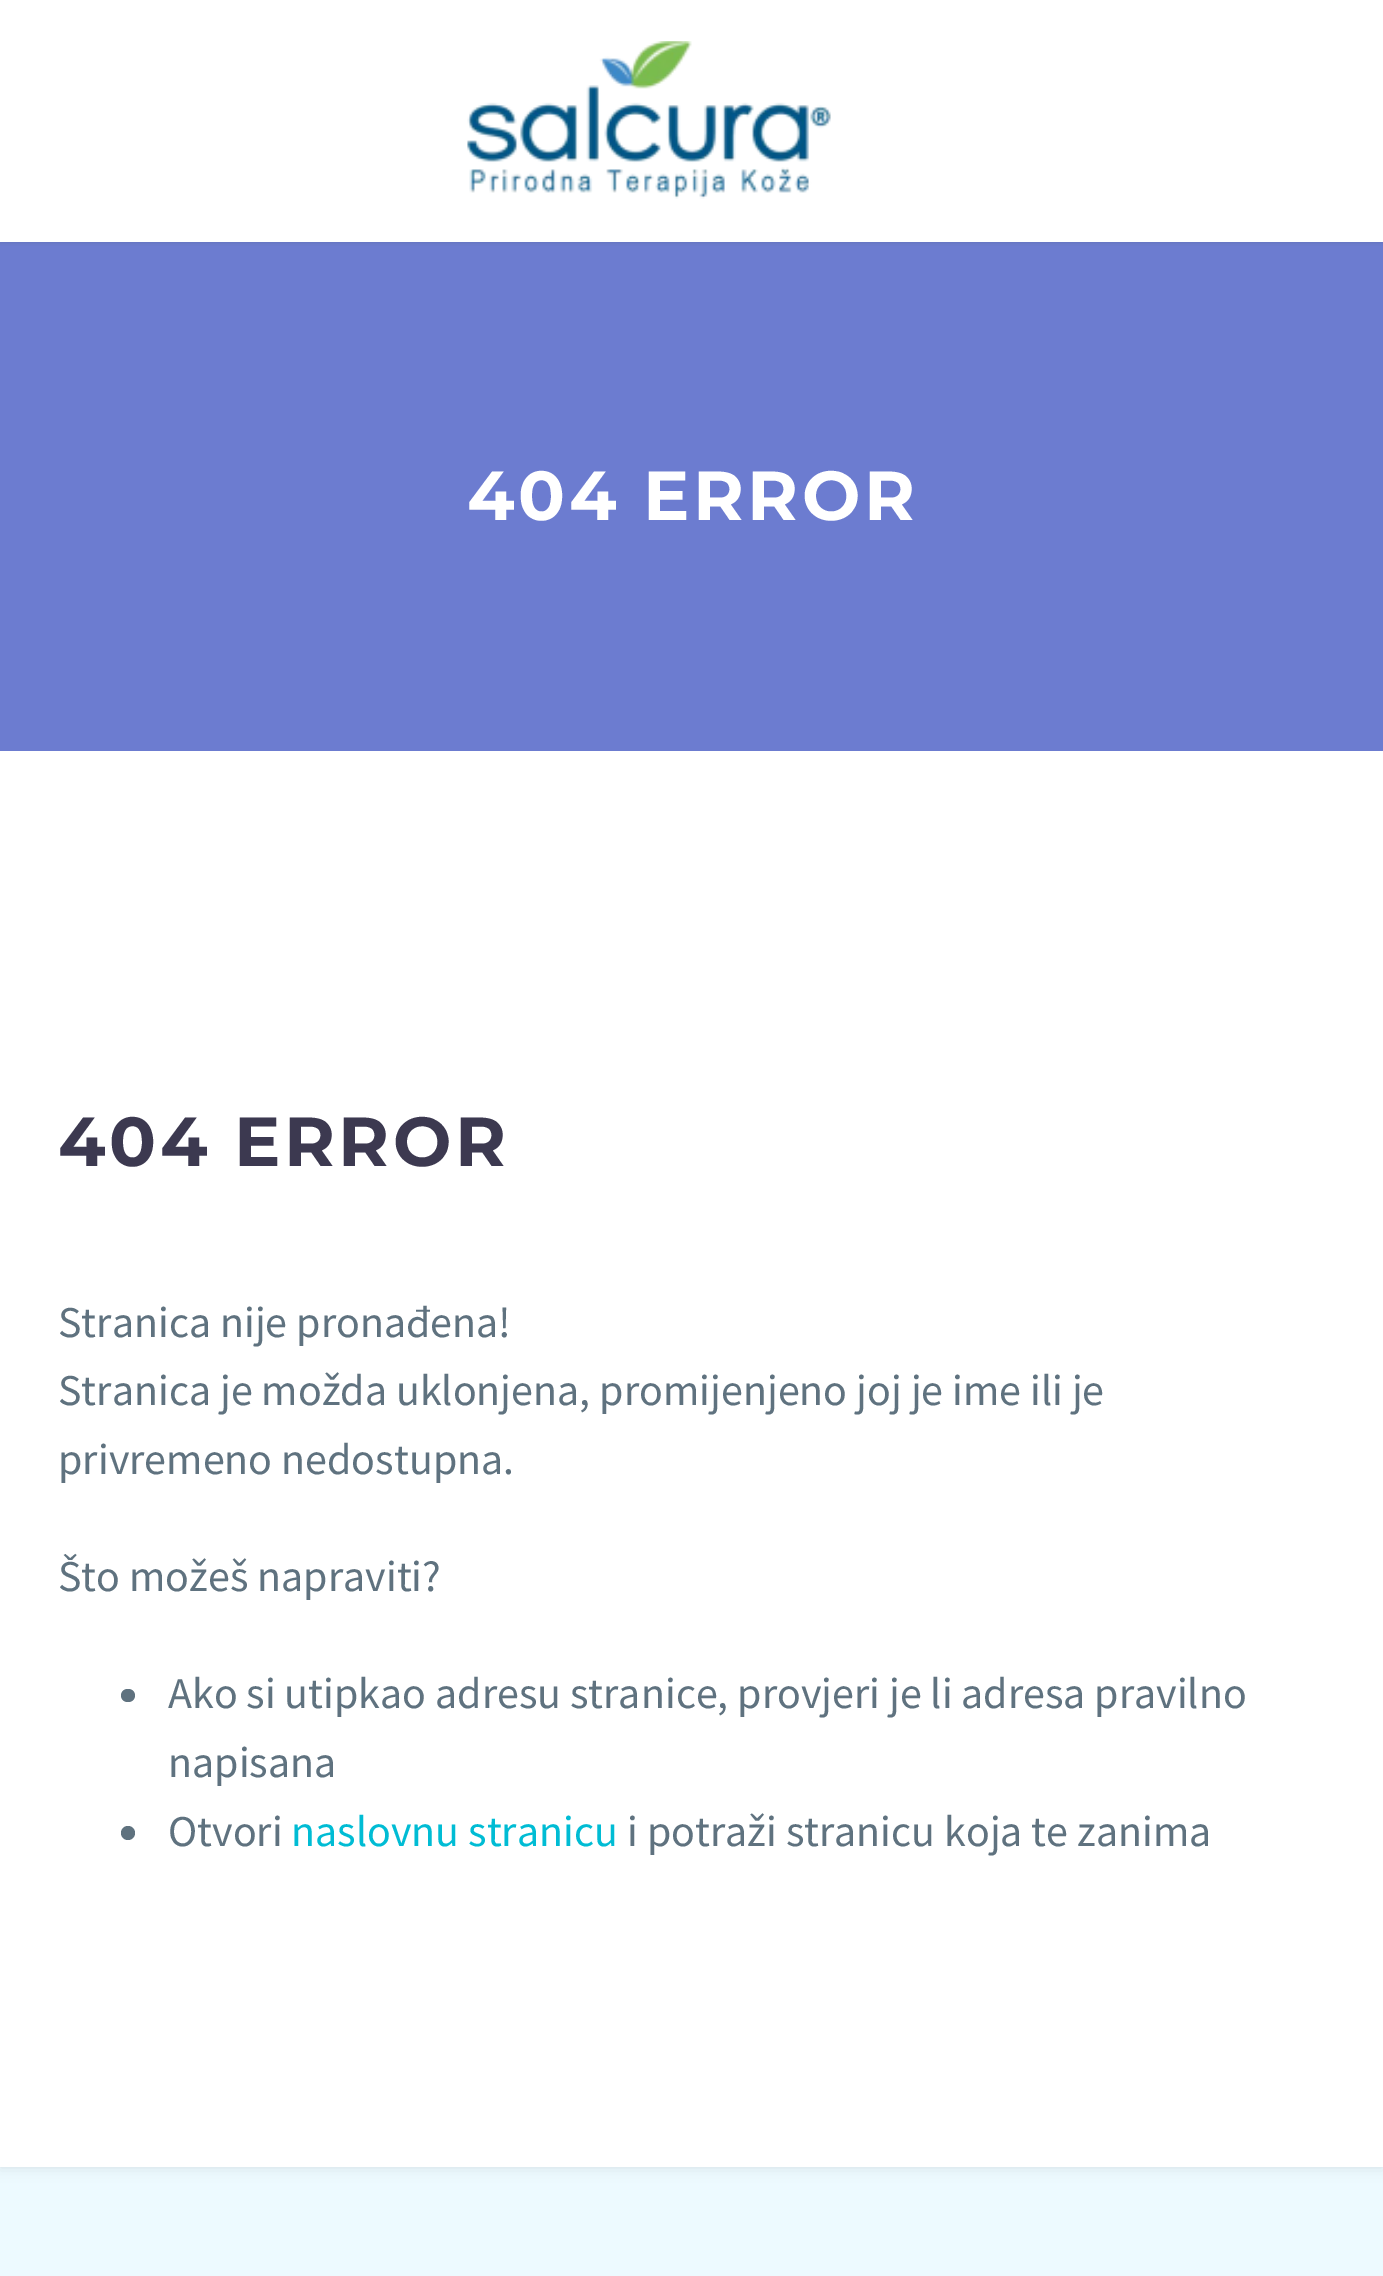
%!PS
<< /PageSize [1383 2276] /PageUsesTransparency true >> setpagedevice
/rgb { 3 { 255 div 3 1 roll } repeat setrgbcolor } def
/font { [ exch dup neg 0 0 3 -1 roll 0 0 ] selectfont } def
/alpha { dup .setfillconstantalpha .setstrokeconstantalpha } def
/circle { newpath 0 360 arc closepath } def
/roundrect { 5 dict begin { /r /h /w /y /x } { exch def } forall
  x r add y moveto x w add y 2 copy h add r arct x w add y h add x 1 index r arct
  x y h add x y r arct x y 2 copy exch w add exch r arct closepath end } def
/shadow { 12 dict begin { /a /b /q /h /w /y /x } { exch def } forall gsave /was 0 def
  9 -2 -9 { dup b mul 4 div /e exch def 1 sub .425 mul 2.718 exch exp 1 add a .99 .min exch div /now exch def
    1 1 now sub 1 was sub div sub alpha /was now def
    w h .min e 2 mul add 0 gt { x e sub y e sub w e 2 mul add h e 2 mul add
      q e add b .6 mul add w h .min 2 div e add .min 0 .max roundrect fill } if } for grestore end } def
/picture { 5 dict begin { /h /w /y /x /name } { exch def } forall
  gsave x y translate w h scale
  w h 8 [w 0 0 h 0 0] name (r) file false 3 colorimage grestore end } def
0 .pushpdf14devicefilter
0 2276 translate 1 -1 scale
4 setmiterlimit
237 250 255 rgb
0 0 1383 2276 rectfill
0 0 0 rgb
0 0 1383 2167 0 7 0.11 shadow
255 255 255 rgb
0 0 1383 242 rectfill
108 124 208 rgb
0 242 1383 509 rectfill
gsave
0 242 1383 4 rectclip
56 69 84 rgb
0 0 1383 242 0 3 0.2 shadow
grestore
(img/1.rgb) 467 41 364 158 picture
255 255 255 rgb
0 751 1383 1416 rectfill
95 114 127 rgb
121 1689 14 13 6.5 roundrect fill
128 1833 7 circle fill
/Montserrat-Bold 69.25 font
255 255 255 rgb
467 520 moveto 3.5 0 (404 ERROR) ashow
60 57 80 rgb
58 1166 moveto 3.5 0 (404 ERROR) ashow
/SourceSansPro-Regular 44 font
95 114 127 rgb
[
  [(Stranica nije pronađena!) 58 1337]
  [(Stranica je možda uklonjena, promijenjeno joj je ime ili je) 58 1405]
  [(privremeno nedostupna.) 58 1474]
  [(Što možeš napraviti?) 58 1591]
  [(Ako si utipkao adresu stranice, provjeri je li adresa pravilno) 168 1708]
  [(napisana) 168 1777]
  [(Otvori) 168 1846]
] { aload pop moveto show } forall
0 188 212 rgb
291 1846 moveto (naslovnu stranicu) show
95 114 127 rgb
627 1846 moveto (i potraži stranicu koja te zanima) show
.poppdf14devicefilter showpage
